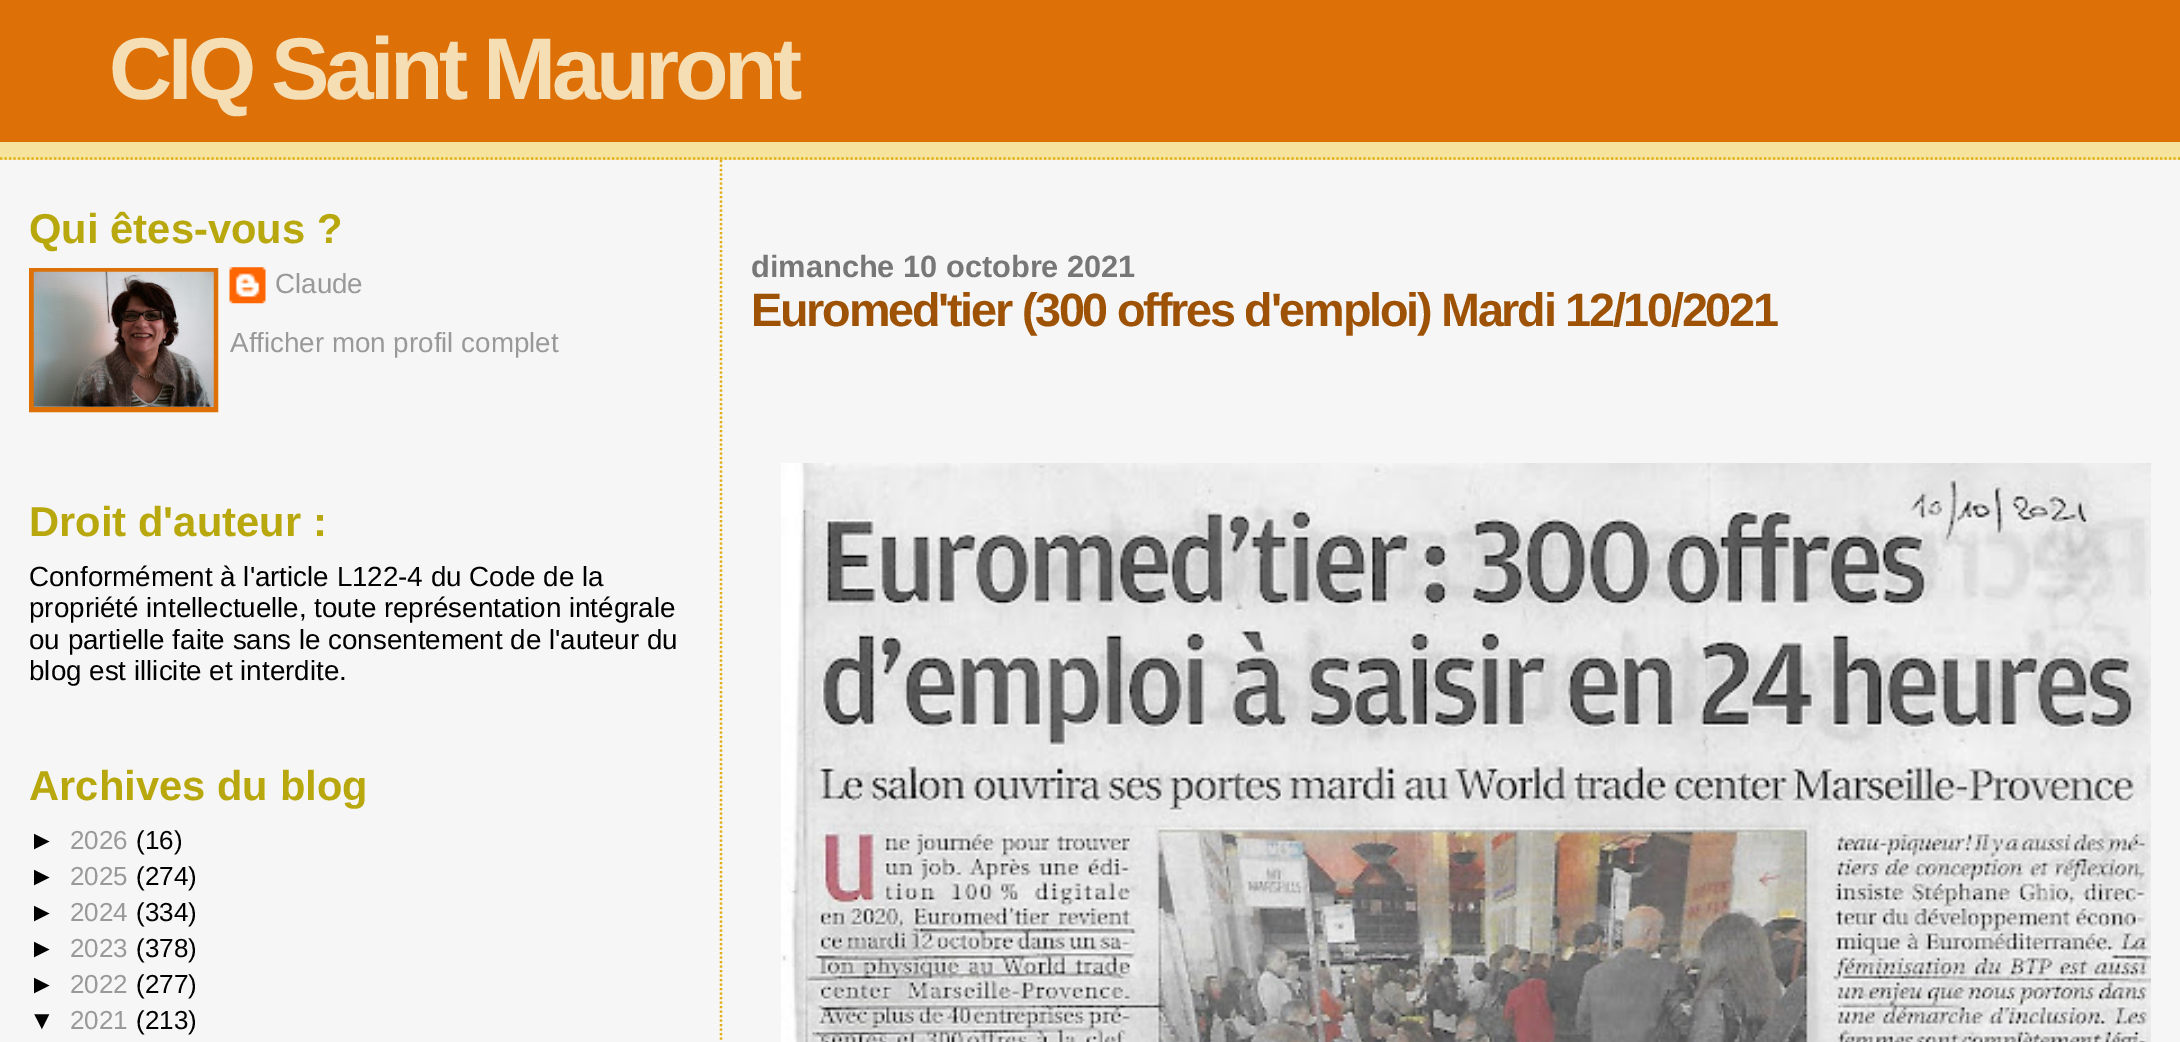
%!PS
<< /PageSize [2180 1042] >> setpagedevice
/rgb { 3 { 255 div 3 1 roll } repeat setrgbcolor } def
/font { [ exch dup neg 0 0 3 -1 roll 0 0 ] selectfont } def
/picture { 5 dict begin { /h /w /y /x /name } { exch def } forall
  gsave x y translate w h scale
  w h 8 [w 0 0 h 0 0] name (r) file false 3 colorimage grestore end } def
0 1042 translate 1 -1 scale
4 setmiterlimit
246 246 246 rgb
0 0 2180 1042 rectfill
245 227 158 rgb
0 142 2180 18 rectfill
224 173 18 rgb
2.2 setlinewidth
[2.25 2.25] 0 setdash
0 158.5 moveto 2180 158.5 lineto stroke
222 112 8 rgb
0 0 2180 142 rectfill
5 setlinewidth
[] 0 setdash
31.5 270.5 184 139 rectstroke
(img/1.rgb) 33 271 181 136 picture
(img/2.rgb) 229 267 37 37 picture
224 173 18 rgb
2.2 setlinewidth
[2.25 2.25] 0 setdash
721 160 moveto 721 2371.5 lineto stroke
(img/3.rgb) 781 463 1370 579 picture
/LiberationSans-Bold 87.75 font
245 222 179 rgb
109 99 moveto -4.5 0 (CIQ Saint Mauront) ashow
/LiberationSans-Bold 41.75 font
184 168 13 rgb
29 243 moveto (Qui êtes-vous ?) show
/LiberationSans-Regular 27.75 font
153 153 153 rgb
275 293 moveto (Claude) show
230 352 moveto (Afficher mon profil complet) show
/LiberationSans-Bold 41.75 font
184 168 13 rgb
29 536 moveto (Droit d'auteur :) show
/LiberationSans-Regular 27.75 font
0 0 0 rgb
[
  [(Conformément à l'article L122-4 du Code de la) 29 586]
  [(propriété intellectuelle, toute représentation intégrale) 29 617]
  [(ou partielle faite sans le consentement de l'auteur du) 29 649]
  [(blog est illicite et interdite.) 29 680]
] { aload pop moveto show } forall
/LiberationSans-Bold 41.75 font
184 168 13 rgb
29 800 moveto (Archives du blog) show
/LiberationSans-Regular 26 font
0 0 0 rgb
29 849 moveto (►) show
153 153 153 rgb
70 849 moveto (2026) show
0 0 0 rgb
136 849 moveto (\(16\)) show
29 885 moveto (►) show
153 153 153 rgb
70 885 moveto (2025) show
0 0 0 rgb
136 885 moveto (\(274\)) show
29 921 moveto (►) show
153 153 153 rgb
70 921 moveto (2024) show
0 0 0 rgb
136 921 moveto (\(334\)) show
29 957 moveto (►) show
153 153 153 rgb
70 957 moveto (2023) show
0 0 0 rgb
136 957 moveto (\(378\)) show
29 993 moveto (►) show
153 153 153 rgb
70 993 moveto (2022) show
0 0 0 rgb
136 993 moveto (\(277\)) show
29 1029 moveto (▼) show
153 153 153 rgb
70 1029 moveto (2021) show
0 0 0 rgb
136 1029 moveto (\(213\)) show
/LiberationSans-Bold 30.75 font
119 119 119 rgb
751 277 moveto (dimanche 10 octobre 2021) show
/LiberationSans-Bold 46.8 font
158 82 5 rgb
751 326 moveto -2.25 0 (Euromed'tier \(300 offres d'emploi\) Mardi 12/10/2021) ashow
showpage
